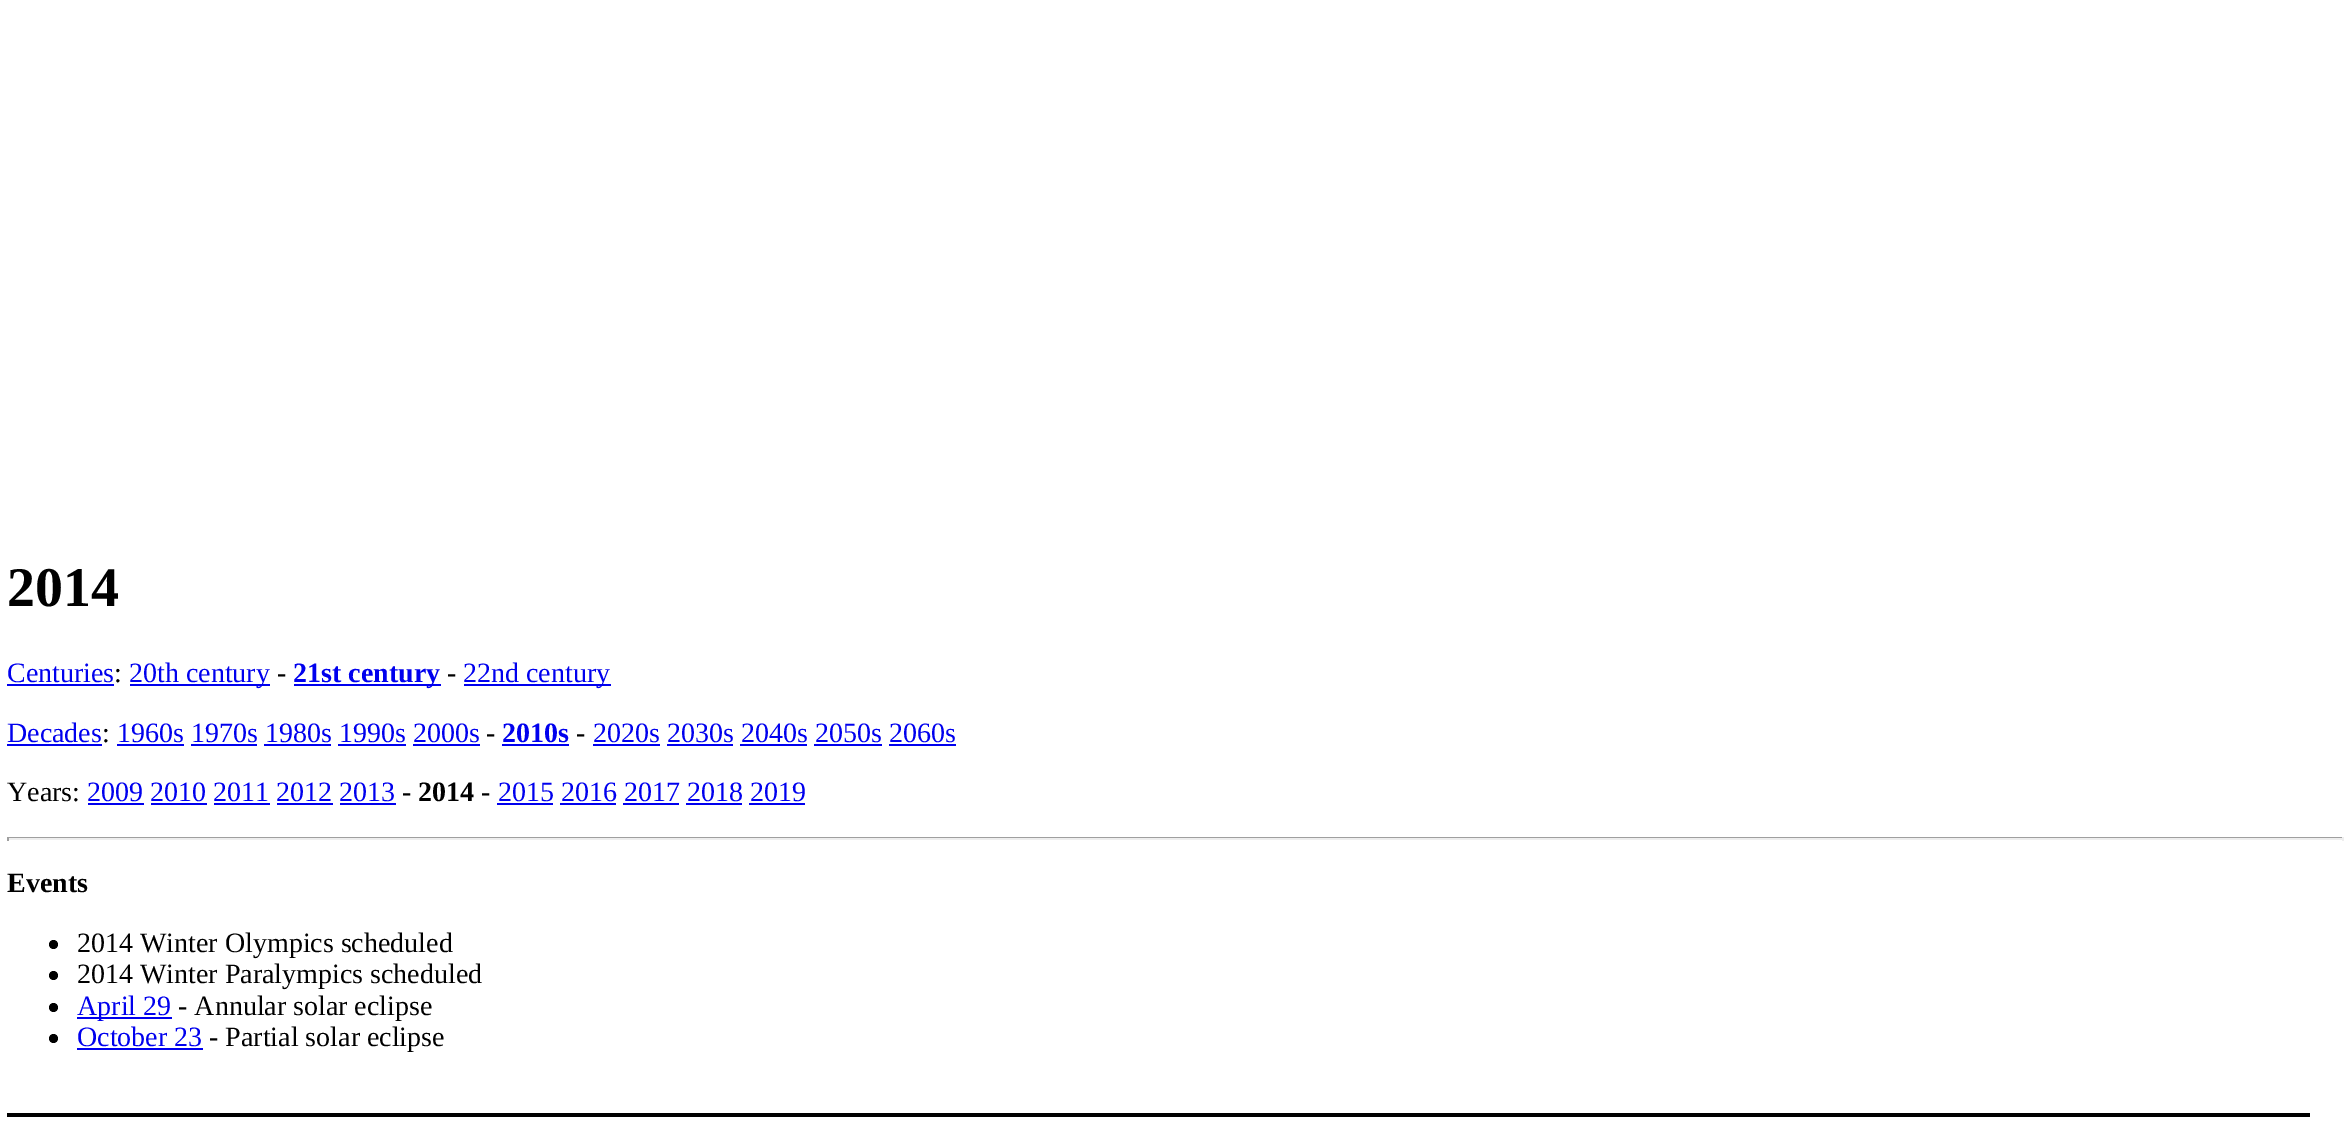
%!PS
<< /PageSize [2349 1132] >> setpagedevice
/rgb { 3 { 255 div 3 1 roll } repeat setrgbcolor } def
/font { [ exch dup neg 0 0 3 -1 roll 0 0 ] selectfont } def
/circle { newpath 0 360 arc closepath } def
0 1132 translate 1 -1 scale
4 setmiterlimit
255 255 255 rgb
0 0 2349 1132 rectfill
[
  [7 684 107 2 0 0 238]
  [130 684 140 2 0 0 238]
  [294 684 147 2 0 0 238]
  [464 684 147 2 0 0 238]
  [7 744 95 2 0 0 238]
  [117 744 67 2 0 0 238]
  [502 744 67 2 0 0 238]
  [593 744 67 2 0 0 238]
  [191 744 66 2 0 0 238]
  [264 744 67 2 0 0 238]
  [338 744 68 2 0 0 238]
  [413 744 67 2 0 0 238]
  [667 744 66 2 0 0 238]
  [740 744 67 2 0 0 238]
  [814 744 68 2 0 0 238]
  [889 744 67 2 0 0 238]
  [88 803 56 2 0 0 238]
  [497 803 56 2 0 0 238]
  [151 803 56 2 0 0 238]
  [214 803 56 2 0 0 238]
  [277 803 56 2 0 0 238]
  [340 803 56 2 0 0 238]
  [560 803 56 2 0 0 238]
  [623 803 56 2 0 0 238]
  [686 803 56 2 0 0 238]
  [749 803 56 2 0 0 238]
  [7 837 2336 1 159 159 159]
  [2342 837 2 4 238 238 238]
  [7 838 2336 2 238 238 238]
  [7 837 2 4 159 159 159]
] { aload pop rgb rectfill } forall
0 0 0 rgb
53.5 944.5 4.5 circle fill
53.5 975.5 4.5 circle fill
53.5 1007.5 4.5 circle fill
0 0 238 rgb
77 1017 95 2 rectfill
0 0 0 rgb
53.5 1038.5 4.5 circle fill
0 0 238 rgb
77 1048 126 2 rectfill
0 0 0 rgb
7 1113 2303 4 rectfill
/LiberationSerif-Bold 56 font
7 606 moveto (2014) show
/LiberationSerif-Regular 28 font
0 0 238 rgb
7 682 moveto (Centuries) show
0 0 0 rgb
114 682 moveto (:) show
0 0 238 rgb
129 682 moveto (20th century) show
0 0 0 rgb
277 682 moveto (-) show
/LiberationSerif-Bold 28 font
0 0 238 rgb
293 682 moveto (21st century) show
/LiberationSerif-Regular 28 font
0 0 0 rgb
447 682 moveto (-) show
0 0 238 rgb
463 682 moveto (22nd century) show
7 742 moveto (Decades) show
0 0 0 rgb
102 742 moveto (:) show
0 0 238 rgb
117 742 moveto (1960s 1970s 1980s 1990s 2000s) show
0 0 0 rgb
486 742 moveto (-) show
/LiberationSerif-Bold 28 font
0 0 238 rgb
502 742 moveto (2010s) show
/LiberationSerif-Regular 28 font
0 0 0 rgb
576 742 moveto (-) show
0 0 238 rgb
593 742 moveto (2020s 2030s 2040s 2050s 2060s) show
0 0 0 rgb
7 801 moveto (Years:) show
0 0 238 rgb
87 801 moveto (2009 2010 2011 2012 2013) show
0 0 0 rgb
402 801 moveto (-) show
/LiberationSerif-Bold 28 font
418 801 moveto (2014) show
/LiberationSerif-Regular 28 font
481 801 moveto (-) show
0 0 238 rgb
498 801 moveto (2015 2016 2017 2018 2019) show
/LiberationSerif-Bold 28 font
0 0 0 rgb
7 892 moveto (Events) show
/LiberationSerif-Regular 28 font
77 952 moveto (2014 Winter Olympics scheduled) show
77 983 moveto (2014 Winter Paralympics scheduled) show
0 0 238 rgb
77 1015 moveto (April 29) show
0 0 0 rgb
178 1015 moveto (- Annular solar eclipse) show
0 0 238 rgb
77 1046 moveto (October 23) show
0 0 0 rgb
209 1046 moveto (- Partial solar eclipse) show
showpage
